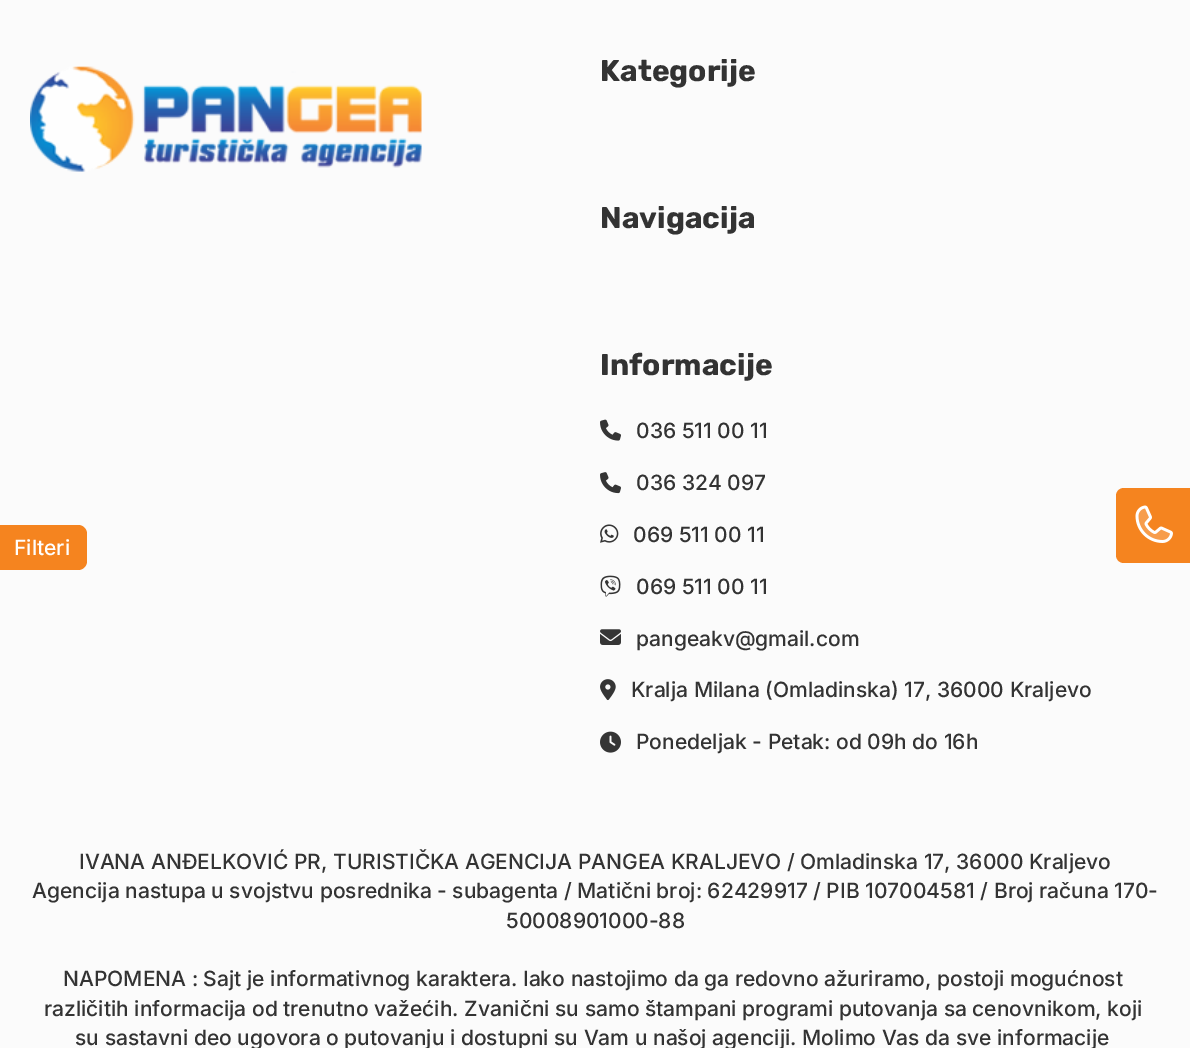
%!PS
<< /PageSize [1190 1048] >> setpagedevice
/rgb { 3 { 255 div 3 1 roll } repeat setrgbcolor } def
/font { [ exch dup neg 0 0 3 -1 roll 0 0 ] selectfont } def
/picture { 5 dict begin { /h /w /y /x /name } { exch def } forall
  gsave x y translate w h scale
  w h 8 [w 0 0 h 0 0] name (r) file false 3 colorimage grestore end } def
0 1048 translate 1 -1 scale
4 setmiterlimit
251 251 251 rgb
0 0 1190 1048 rectfill
(img/1.rgb) 30 66 392 106 picture
(img/2.rgb) 600 419 21 22 picture
(img/3.rgb) 600 472 21 22 picture
(img/4.rgb) 600 524 19 19 picture
(img/5.rgb) 600 575 21 22 picture
(img/6.rgb) 600 629 21 16 picture
(img/7.rgb) 600 679 16 22 picture
(img/8.rgb) 600 731 21 22 picture
245 132 31 rgb
-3 525 moveto 78 525 lineto 83 525 87 529 87 534 curveto 87 561 lineto 87 566 83 570 78 570 curveto -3 570 lineto closepath fill
1124 488 moveto 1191 488 lineto 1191 563 lineto 1124 563 lineto 1119.5 563 1116 559.5 1116 555 curveto 1116 496 lineto 1116 491.5 1119.5 488 1124 488 curveto closepath fill
(img/9.rgb) 1135 505 38 38 picture
/Rubik-Bold 30 font
51 51 51 rgb
[
  [(Kategorije) 600 81]
  [(Navigacija) 600 228]
  [(Informacije) 600 375]
] { aload pop moveto show } forall
/Inter-Medium 21 font
[
  [(036 511 00 11) 636 438]
  [(036 324 097) 636 490]
  [(069 511 00 11) 633 542]
  [(069 511 00 11) 636 594]
  [(pangeakv@gmail.com) 636 646]
  [(Kralja Milana \(Omladinska\) 17, 36000 Kraljevo) 631 697]
  [(Ponedeljak - Petak: od 09h do 16h) 636 749]
  [(IVANA ANĐELKOVIĆ PR, TURISTIČKA AGENCIJA PANGEA KRALJEVO / Omladinska 17, 36000 Kraljevo) 79 869]
  [(Agencija nastupa u svojstvu posrednika - subagenta / Matični broj: 62429917 / PIB 107004581 / Broj računa 170-) 32 898]
  [(50008901000-88) 506 928]
  [(NAPOMENA : Sajt je informativnog karaktera. Iako nastojimo da ga redovno ažuriramo, postoji mogućnost) 63 986]
  [(različitih informacija od trenutno važećih. Zvanični su samo štampani programi putovanja sa cenovnikom, koji) 44 1016]
  [(su sastavni deo ugovora o putovanju i dostupni su Vam u našoj agenciji. Molimo Vas da sve informacije) 75 1045]
] { aload pop moveto show } forall
255 255 255 rgb
14 555 moveto (Filteri) show
showpage
